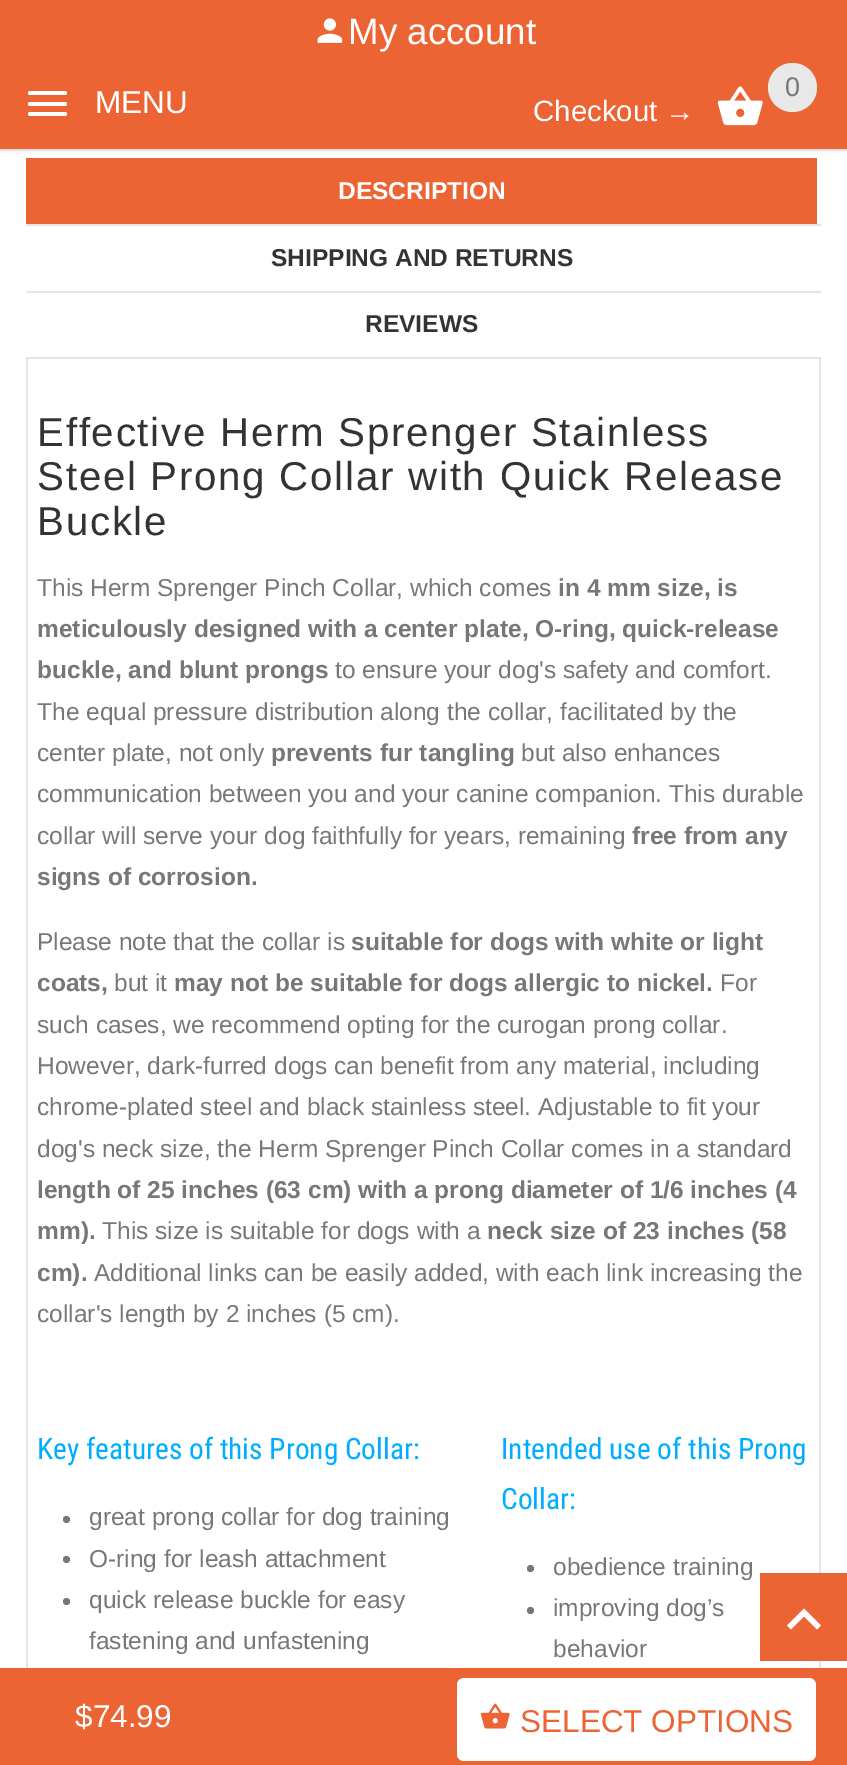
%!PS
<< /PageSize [847 1765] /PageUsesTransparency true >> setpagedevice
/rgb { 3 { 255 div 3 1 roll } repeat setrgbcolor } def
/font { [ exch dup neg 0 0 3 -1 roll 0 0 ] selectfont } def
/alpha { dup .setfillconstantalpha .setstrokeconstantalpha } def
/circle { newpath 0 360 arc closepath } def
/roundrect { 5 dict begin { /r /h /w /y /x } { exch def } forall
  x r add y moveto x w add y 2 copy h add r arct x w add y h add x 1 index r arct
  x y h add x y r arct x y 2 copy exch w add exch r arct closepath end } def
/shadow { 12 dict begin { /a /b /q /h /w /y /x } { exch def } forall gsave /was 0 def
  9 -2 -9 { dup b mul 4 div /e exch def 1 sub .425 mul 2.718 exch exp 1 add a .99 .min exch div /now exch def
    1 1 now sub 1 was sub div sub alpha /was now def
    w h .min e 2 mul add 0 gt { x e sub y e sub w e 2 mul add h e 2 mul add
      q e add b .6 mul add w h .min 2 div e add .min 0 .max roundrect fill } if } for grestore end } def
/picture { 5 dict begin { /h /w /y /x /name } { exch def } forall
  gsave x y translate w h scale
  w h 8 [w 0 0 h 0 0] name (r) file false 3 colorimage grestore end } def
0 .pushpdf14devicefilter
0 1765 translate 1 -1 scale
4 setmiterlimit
255 255 255 rgb
0 0 847 1765 rectfill
0 0 0 rgb
0 2 847 147 0 2 0.24 shadow
0 2 847 147 0 2.5 0.12 shadow
236 100 52 rgb
0 0 847 149 rectfill
(img/1.rgb) 317 18 26 25 picture
255 255 255 rgb
28 91 39 4 2 roundrect fill
28 102 39 4 2 roundrect fill
28 112 39 4 2 roundrect fill
232 232 232 rgb
792.5 87.5 24.5 circle fill
(img/2.rgb) 717 86 46 40 picture
[
  [26 224 795 2 229 229 229]
  [26 158 791 66 236 100 52]
  [26 291 795 2 229 229 229]
  [26 357 795 2 229 229 229]
  [819 359 2 1309 229 229 229]
  [26 359 2 1309 229 229 229]
] { aload pop rgb rectfill } forall
119 119 119 rgb
66.5 1519.5 3.5 circle fill
66.5 1559.5 3.5 circle fill
66.5 1601.5 3.5 circle fill
530.5 1568.5 3.5 circle fill
530.5 1610.5 3.5 circle fill
236 100 52 rgb
0 1668 847 97 rectfill
255 255 255 rgb
457 1678 359 83 7 roundrect fill
(img/3.rgb) 480 1703 30 26 picture
236 100 52 rgb
760 1573 87 88 rectfill
255 255 255 rgb
791 1629.5 moveto 787 1625.5 lineto 804 1608.5 lineto 821 1625.5 lineto 817 1629.5 lineto 804 1616.5 lineto closepath fill
/LiberationSans-Regular 36.75 font
348 44 moveto (My account) show
/LiberationSans-Regular 31.5 font
95 113 moveto (MENU) show
/LiberationSans-Regular 27 font
119 119 119 rgb
785 96 moveto (0) show
/LiberationSans-Regular 29.4 font
255 255 255 rgb
533 121 moveto (Checkout →) show
/LiberationSans-Bold 24.5 font
338 199 moveto (DESCRIPTION) show
51 51 51 rgb
271 266 moveto (SHIPPING AND RETURNS) show
365 332 moveto (REVIEWS) show
/LiberationSans-Regular 40.25 font
37 446 moveto 1.75 0 (Effective Herm Sprenger Stainless) ashow
37 490 moveto 1.75 0 (Steel Prong Collar with Quick Release) ashow
37 535 moveto 1.75 0 (Buckle) ashow
/LiberationSans-Regular 24.5 font
119 119 119 rgb
37 596 moveto (This Herm Sprenger Pinch Collar, which comes) show
/LiberationSans-Bold 24.5 font
[
  [(in 4 mm size, is) 558 596]
  [(meticulously designed with a center plate, O-ring, quick-release) 37 637]
  [(buckle, and blunt prongs) 37 678]
] { aload pop moveto show } forall
/LiberationSans-Regular 24.5 font
[
  [(to ensure your dog's safety and comfort.) 335 678]
  [(The equal pressure distribution along the collar, facilitated by the) 37 720]
  [(center plate, not only) 37 761]
] { aload pop moveto show } forall
/LiberationSans-Bold 24.5 font
271 761 moveto (prevents fur tangling) show
/LiberationSans-Regular 24.5 font
[
  [(but also enhances) 521 761]
  [(communication between you and your canine companion. This durable) 37 802]
  [(collar will serve your dog faithfully for years, remaining) 37 844]
] { aload pop moveto show } forall
/LiberationSans-Bold 24.5 font
632 844 moveto (free from any) show
37 885 moveto (signs of corrosion.) show
/LiberationSans-Regular 24.5 font
37 950 moveto (Please note that the collar is) show
/LiberationSans-Bold 24.5 font
351 950 moveto (suitable for dogs with white or light) show
37 991 moveto (coats,) show
/LiberationSans-Regular 24.5 font
114 991 moveto (but it) show
/LiberationSans-Bold 24.5 font
174 991 moveto (may not be suitable for dogs allergic to nickel.) show
/LiberationSans-Regular 24.5 font
[
  [(For) 720 991]
  [(such cases, we recommend opting for the curogan prong collar.) 37 1033]
  [(However, dark-furred dogs can benefit from any material, including) 37 1074]
  [(chrome-plated steel and black stainless steel. Adjustable to fit your) 37 1115]
  [(dog's neck size, the Herm Sprenger Pinch Collar comes in a standard) 37 1157]
] { aload pop moveto show } forall
/LiberationSans-Bold 24.5 font
37 1198 moveto (length of 25 inches \(63 cm\) with a prong diameter of 1/6 inches \(4) show
37 1239 moveto (mm\).) show
/LiberationSans-Regular 24.5 font
102 1239 moveto (This size is suitable for dogs with a) show
/LiberationSans-Bold 24.5 font
487 1239 moveto (neck size of 23 inches \(58) show
37 1281 moveto (cm\).) show
/LiberationSans-Regular 24.5 font
94 1281 moveto (Additional links can be easily added, with each link increasing the) show
37 1322 moveto (collar's length by 2 inches \(5 cm\).) show
/RobotoCondensed-Regular 29.4 font
0 174 255 rgb
37 1459 moveto (Key features of this Prong Collar:) show
/LiberationSans-Regular 24.5 font
119 119 119 rgb
[
  [(great prong collar for dog training) 89 1525]
  [(O-ring for leash attachment) 89 1567]
  [(quick release buckle for easy) 89 1608]
  [(fastening and unfastening) 89 1649]
] { aload pop moveto show } forall
/RobotoCondensed-Regular 29.4 font
0 174 255 rgb
501 1459 moveto (Intended use of this Prong) show
501 1509 moveto (Collar:) show
/LiberationSans-Regular 24.5 font
119 119 119 rgb
[
  [(obedience training) 553 1575]
  [(improving dog’s) 553 1616]
  [(behavior) 553 1657]
] { aload pop moveto show } forall
/LiberationSans-Regular 31.5 font
255 255 255 rgb
75 1727 moveto ($74.99) show
236 100 52 rgb
520 1732 moveto (SELECT OPTIONS) show
.poppdf14devicefilter showpage
